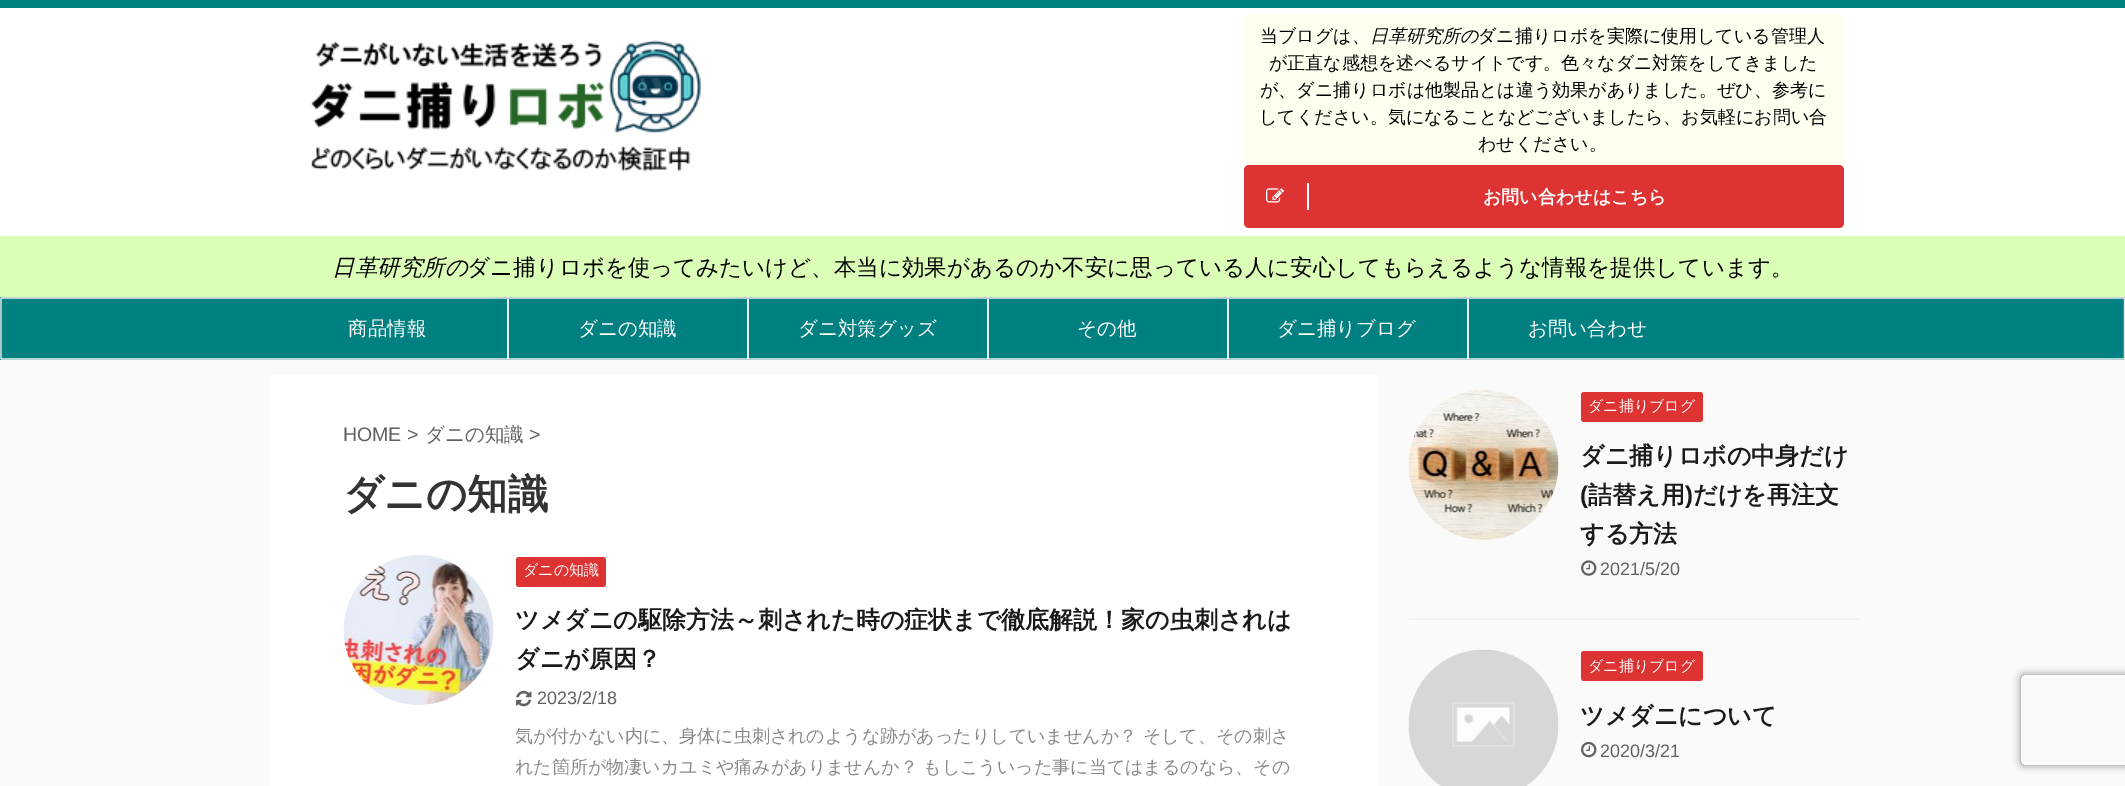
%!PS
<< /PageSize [2125 786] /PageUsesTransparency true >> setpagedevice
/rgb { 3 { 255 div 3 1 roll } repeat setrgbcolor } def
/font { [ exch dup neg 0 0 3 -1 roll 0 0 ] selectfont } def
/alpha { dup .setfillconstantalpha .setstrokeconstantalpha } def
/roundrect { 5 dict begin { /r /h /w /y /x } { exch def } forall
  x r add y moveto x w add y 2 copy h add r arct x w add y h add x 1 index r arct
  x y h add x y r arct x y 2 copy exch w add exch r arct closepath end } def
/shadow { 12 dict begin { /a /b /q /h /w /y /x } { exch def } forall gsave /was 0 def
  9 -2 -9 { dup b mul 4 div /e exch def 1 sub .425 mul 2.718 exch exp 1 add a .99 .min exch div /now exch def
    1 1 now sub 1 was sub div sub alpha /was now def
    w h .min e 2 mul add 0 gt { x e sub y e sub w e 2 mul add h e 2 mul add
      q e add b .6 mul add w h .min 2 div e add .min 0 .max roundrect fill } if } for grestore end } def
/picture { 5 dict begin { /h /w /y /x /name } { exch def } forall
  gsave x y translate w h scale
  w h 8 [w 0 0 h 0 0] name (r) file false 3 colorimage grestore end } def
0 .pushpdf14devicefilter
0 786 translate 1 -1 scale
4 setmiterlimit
250 250 250 rgb
0 0 2125 786 rectfill
0 128 128 rgb
0 0 2125 8 rectfill
255 255 255 rgb
0 8 2125 228 rectfill
(img/1.rgb) 310 40 392 132 picture
255 255 239 rgb
1244 15 600 150 5 roundrect fill
221 51 51 rgb
1244 165 600 63 5 roundrect fill
(img/2.rgb) 1266 188 18 15 picture
255 255 255 rgb
1307 183 2 27 rectfill
219 255 183 rgb
0 236 2125 61 rectfill
0 128 128 rgb
0 297 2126 63 1.5 roundrect fill
0.75 alpha
240 240 240 rgb
1 297 2124 2 rectfill
1 alpha
227 227 227 rgb
1.5 setlinewidth
2124.5 298 moveto 2124.5 359 lineto stroke
0.75 alpha
[
  [1 358 2124 2 240 240 240]
  [0 298 2 61 227 227 227]
] { aload pop rgb rectfill } forall
1 alpha
[
  [507 299 2 60 240 240 240]
  [747 299 2 60 240 240 240]
  [987 299 2 60 240 240 240]
  [1227 299 2 60 240 240 240]
  [1467 299 2 60 240 240 240]
] { aload pop rgb rectfill } forall
255 255 255 rgb
269 375 1110 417 6 roundrect fill
(img/3.rgb) 343 555 151 150 picture
221 51 51 rgb
516 557 90 30 3 roundrect fill
(img/4.rgb) 516 690 16 17 picture
243 243 243 rgb
1409 618 450 2 rectfill
(img/5.rgb) 1408 390 151 150 picture
221 51 51 rgb
1581 392 122 30 3 roundrect fill
(img/6.rgb) 1581 560 16 16 picture
(img/7.rgb) 1408 649 151 137 picture
1581 651 122 30 3 roundrect fill
(img/8.rgb) 1581 741 16 17 picture
gsave
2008 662 moveto 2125 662 lineto 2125 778 lineto 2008 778 lineto closepath 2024 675 moveto 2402 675 lineto 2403.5 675 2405 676.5 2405 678 curveto 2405 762 lineto 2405 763.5 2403.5 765 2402 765 curveto 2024 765 lineto 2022.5 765 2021 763.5 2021 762 curveto 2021 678 lineto 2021 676.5 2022.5 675 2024 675 curveto closepath eoclip newpath
128 128 128 rgb
2021 675 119 90 3 4 1 shadow
grestore
/WenQuanYiZenHei-Medium 18 font
0 0 0 rgb
1260 42 moveto (当ブログは、) show
/WenQuanYiZenHei-MediumItalic 18 font
1370 42 moveto (日革研究所の) show
/WenQuanYiZenHei-Medium 18 font
[
  [(ダニ捕りロボを実際に使用している管理人) 1478 42]
  [(が正直な感想を述べるサイトです。色々なダニ対策をしてきました) 1269 69]
  [(が、ダニ捕りロボは他製品とは違う効果がありました。ぜひ、参考に) 1260 96]
  [(してください。気になることなどございましたら、お気軽にお問い合) 1259 123]
  [(わせください。) 1478 150]
] { aload pop moveto show } forall
/WenQuanYiZenHei-Bold 18 font
255 255 255 rgb
1483 203 moveto (お問い合わせはこちら) show
/WenQuanYiZenHei-MediumItalic 22.5 font
0 0 0 rgb
332 275 moveto (日革研究所の) show
/WenQuanYiZenHei-Medium 22.5 font
467 275 moveto (ダニ捕りロボを使ってみたいけど、本当に効果があるのか不安に思っている人に安心してもらえるような情報を提供しています。) show
/WenQuanYiZenHei-Medium 19.5 font
255 255 255 rgb
[
  [(商品情報) 348 335]
  [(ダニの知識) 578 335]
  [(ダニ対策グッズ) 798 335]
  [(その他) 1077 335]
  [(ダニ捕りブログ) 1277 335]
  [(お問い合わせ) 1528 335]
] { aload pop moveto show } forall
/LiberationSans-Regular 19.5 font
97 97 97 rgb
343 441 moveto (HOME >) show
/WenQuanYiZenHei-Medium 19.5 font
425 441 moveto (ダニの知識) show
/LiberationSans-Regular 19.5 font
529 441 moveto (>) show
/WenQuanYiZenHei-Bold 40.5 font
51 51 51 rgb
343 508 moveto (ダニの知識) show
/WenQuanYiZenHei-Medium 15 font
255 255 255 rgb
523 575 moveto (ダニの知識) show
/WenQuanYiZenHei-Bold 24 font
26 26 26 rgb
515 628 moveto (ツメダニの駆除方法～刺された時の症状まで徹底解説！家の虫刺されは) show
515 667 moveto (ダニが原因？) show
/LiberationSans-Regular 18 font
97 97 97 rgb
537 704 moveto (2023/2/18) show
/WenQuanYiZenHei-Medium 18 font
136 136 136 rgb
515 742 moveto (気が付かない内に、身体に虫刺されのような跡があったりしていませんか？ そして、その刺さ) show
515 773 moveto (れた箇所が物凄いカユミや痛みがありませんか？ もしこういった事に当てはまるのなら、その) show
/WenQuanYiZenHei-Medium 15 font
255 255 255 rgb
1588 411 moveto (ダニ捕りブログ) show
/WenQuanYiZenHei-Bold 24 font
26 26 26 rgb
1580 464 moveto (ダニ捕りロボの中身だけ) show
/LiberationSans-Bold 24 font
1580 503 moveto (\() show
/WenQuanYiZenHei-Bold 24 font
1588 503 moveto (詰替え用) show
/LiberationSans-Bold 24 font
1685 503 moveto (\)) show
/WenQuanYiZenHei-Bold 24 font
1693 503 moveto (だけを再注文) show
1580 542 moveto (する方法) show
/LiberationSans-Regular 18 font
97 97 97 rgb
1600 575 moveto (2021/5/20) show
/WenQuanYiZenHei-Medium 15 font
255 255 255 rgb
1588 671 moveto (ダニ捕りブログ) show
/WenQuanYiZenHei-Bold 24 font
26 26 26 rgb
1580 724 moveto (ツメダニについて) show
/LiberationSans-Regular 18 font
97 97 97 rgb
1600 757 moveto (2020/3/21) show
.poppdf14devicefilter showpage
